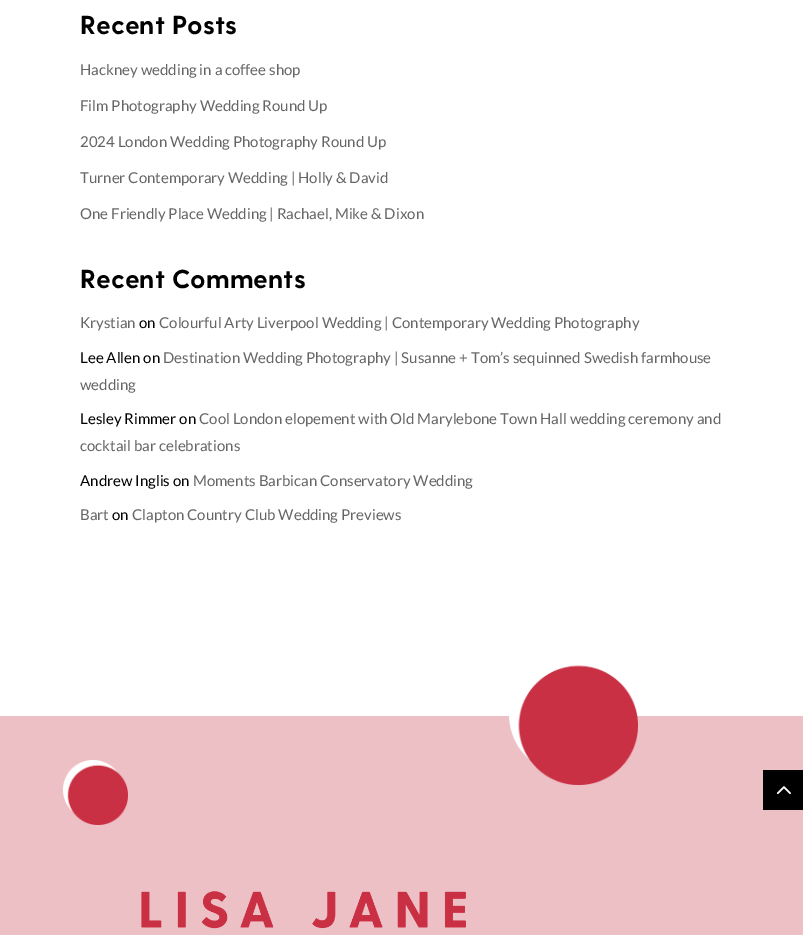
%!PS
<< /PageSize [803 935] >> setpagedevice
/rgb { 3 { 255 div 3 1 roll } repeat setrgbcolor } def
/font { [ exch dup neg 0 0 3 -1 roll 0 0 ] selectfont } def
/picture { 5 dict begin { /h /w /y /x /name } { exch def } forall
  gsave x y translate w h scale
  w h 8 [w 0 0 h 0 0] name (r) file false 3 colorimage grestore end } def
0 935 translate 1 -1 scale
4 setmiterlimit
255 255 255 rgb
0 0 803 935 rectfill
237 192 197 rgb
0 716 803 219 rectfill
(img/1.rgb) 509 665 129 120 picture
(img/2.rgb) 63 760 65 65 picture
(img/3.rgb) 141 891 325 38 picture
0 0 0 rgb
763 770 40 40 rectfill
(img/4.rgb) 776 786 15 9 picture
/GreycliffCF-Bold 26 font
80 34 moveto (Recent Posts) show
/Lato-Regular 15 font
102 102 102 rgb
[
  [(Hackney wedding in a coffee shop) 80 75]
  [(Film Photography Wedding Round Up) 80 111]
  [(2024 London Wedding Photography Round Up) 80 147]
  [(Turner Contemporary Wedding | Holly & David) 80 183]
  [(One Friendly Place Wedding | Rachael, Mike & Dixon) 80 219]
] { aload pop moveto show } forall
/GreycliffCF-Bold 26 font
0 0 0 rgb
80 288 moveto (Recent Comments) show
/Lato-Regular 15 font
102 102 102 rgb
80 328 moveto (Krystian) show
0 0 0 rgb
139 328 moveto (on) show
102 102 102 rgb
159 328 moveto (Colourful Arty Liverpool Wedding | Contemporary Wedding Photography) show
0 0 0 rgb
80 363 moveto (Lee Allen on) show
102 102 102 rgb
163 363 moveto (Destination Wedding Photography | Susanne + Tom’s sequinned Swedish farmhouse) show
80 390 moveto (wedding) show
0 0 0 rgb
80 424 moveto (Lesley Rimmer on) show
102 102 102 rgb
199 424 moveto (Cool London elopement with Old Marylebone Town Hall wedding ceremony and) show
80 451 moveto (cocktail bar celebrations) show
0 0 0 rgb
80 486 moveto (Andrew Inglis on) show
102 102 102 rgb
193 486 moveto (Moments Barbican Conservatory Wedding) show
80 520 moveto (Bart) show
0 0 0 rgb
112 520 moveto (on) show
102 102 102 rgb
132 520 moveto (Clapton Country Club Wedding Previews) show
showpage
